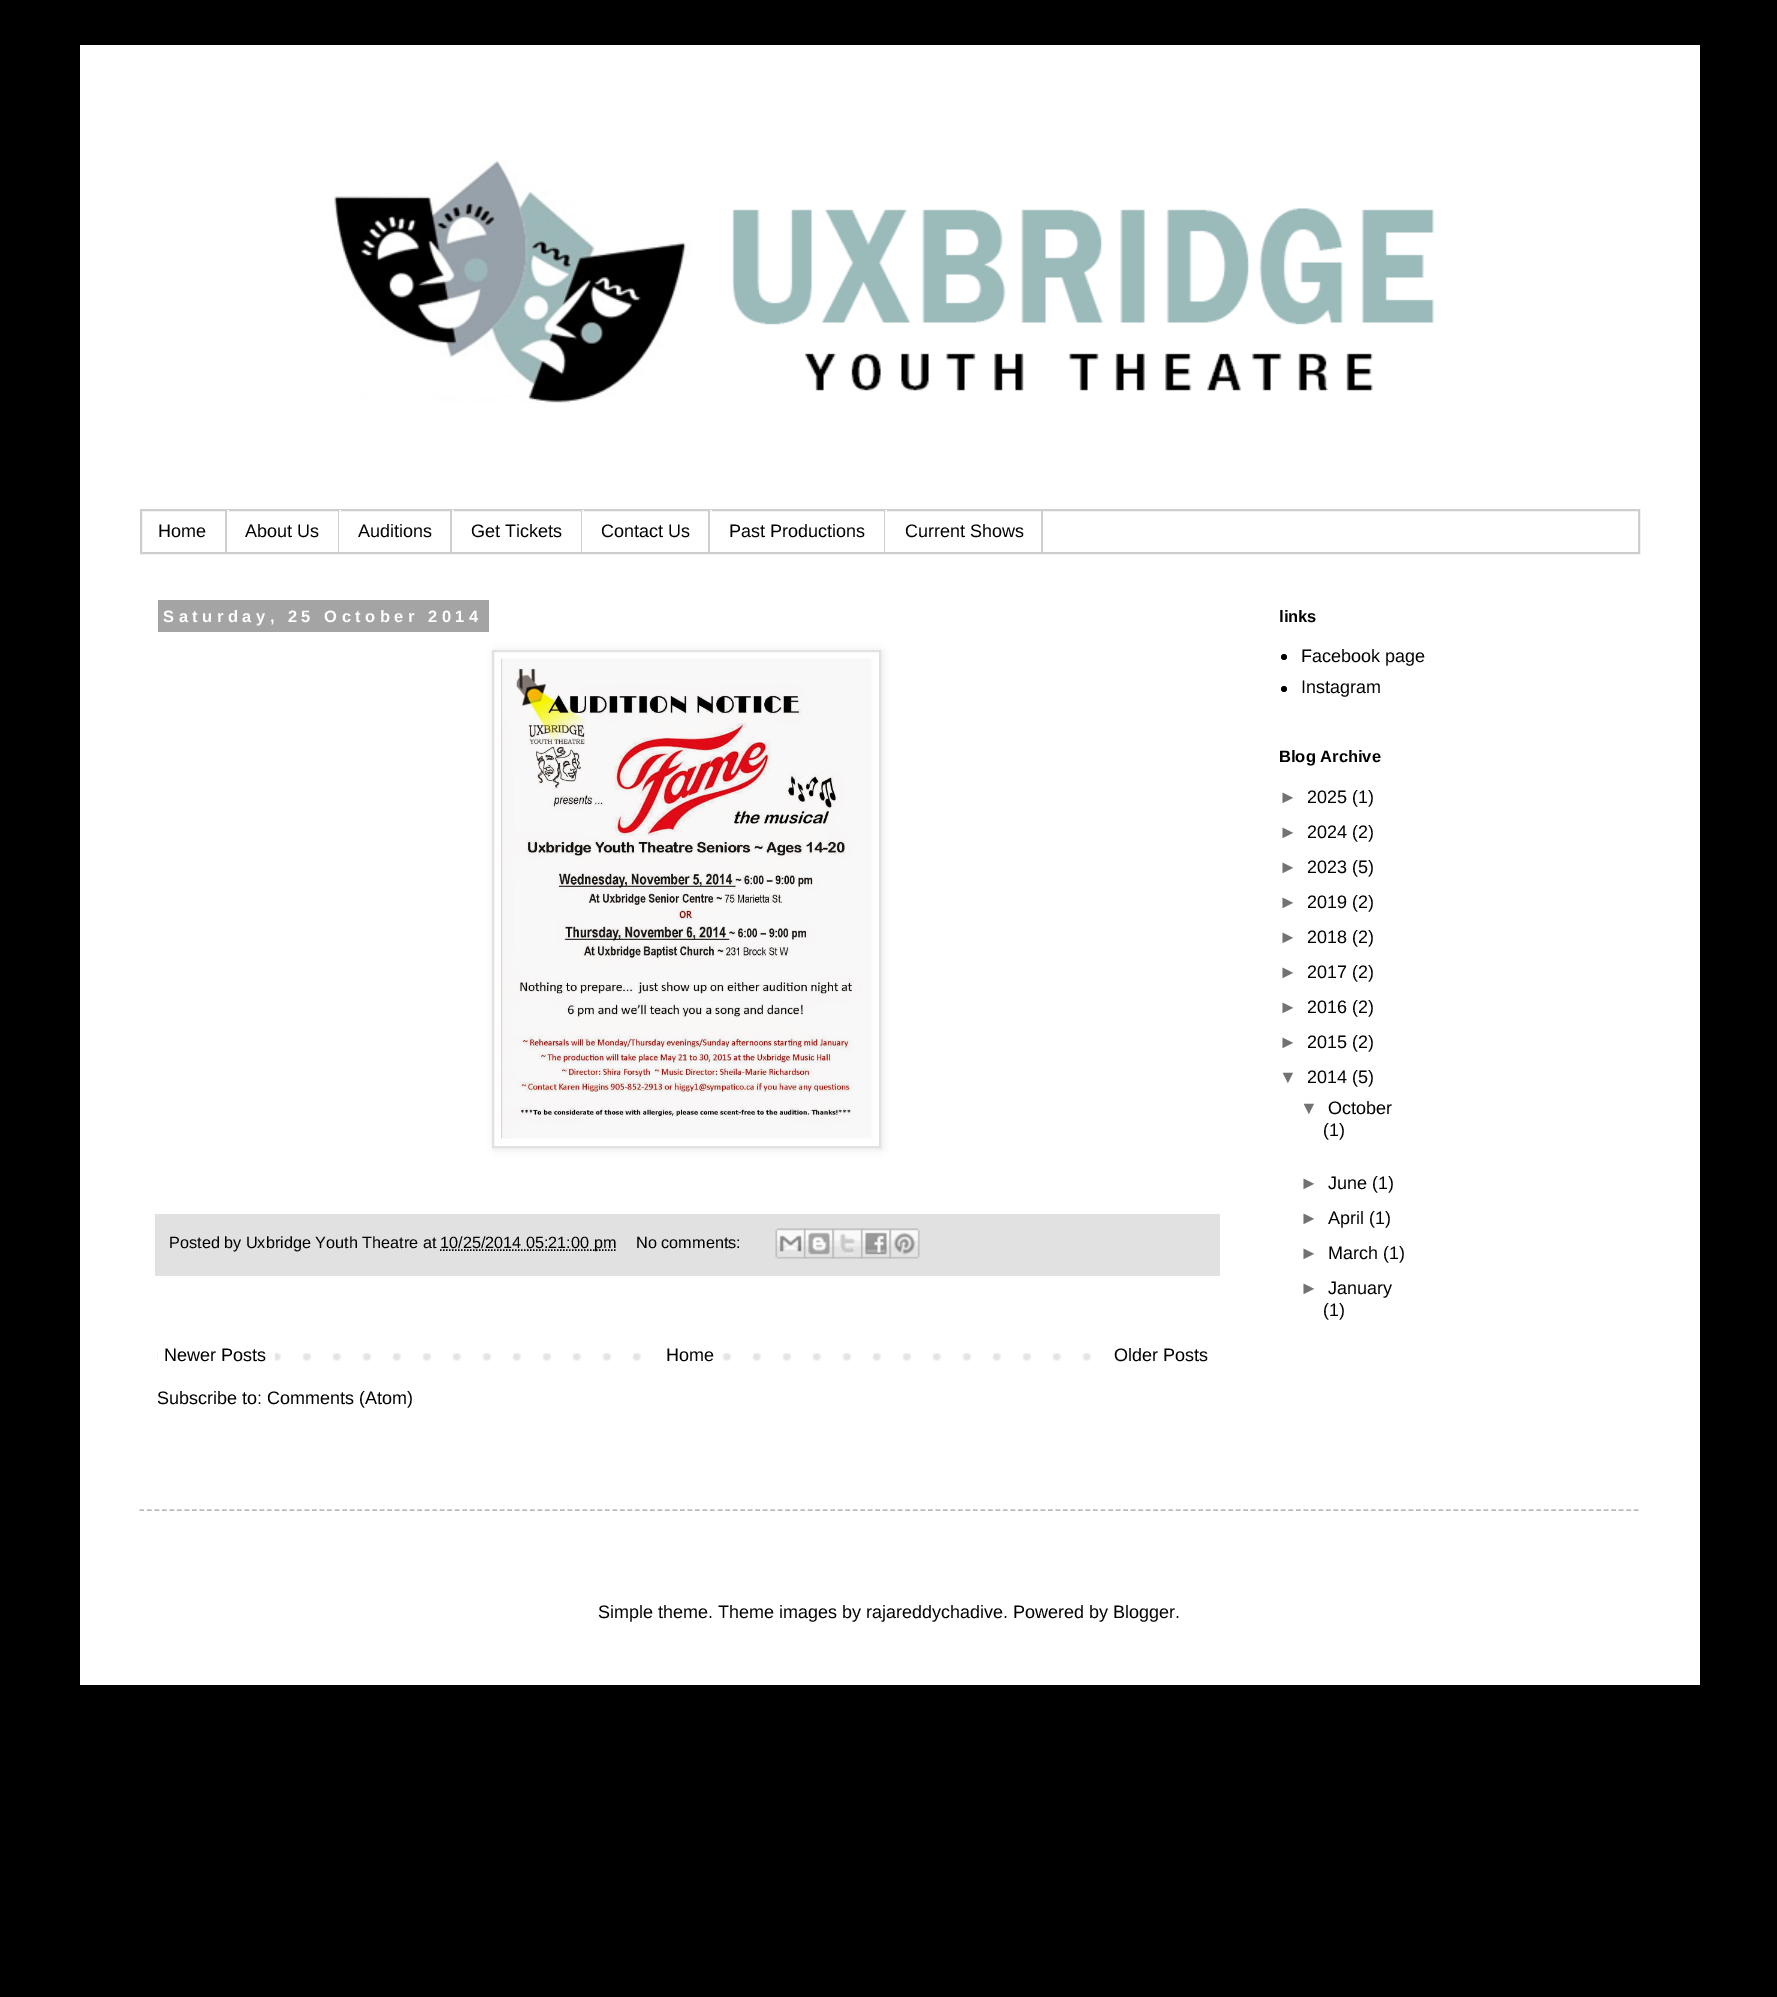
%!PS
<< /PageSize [1777 1997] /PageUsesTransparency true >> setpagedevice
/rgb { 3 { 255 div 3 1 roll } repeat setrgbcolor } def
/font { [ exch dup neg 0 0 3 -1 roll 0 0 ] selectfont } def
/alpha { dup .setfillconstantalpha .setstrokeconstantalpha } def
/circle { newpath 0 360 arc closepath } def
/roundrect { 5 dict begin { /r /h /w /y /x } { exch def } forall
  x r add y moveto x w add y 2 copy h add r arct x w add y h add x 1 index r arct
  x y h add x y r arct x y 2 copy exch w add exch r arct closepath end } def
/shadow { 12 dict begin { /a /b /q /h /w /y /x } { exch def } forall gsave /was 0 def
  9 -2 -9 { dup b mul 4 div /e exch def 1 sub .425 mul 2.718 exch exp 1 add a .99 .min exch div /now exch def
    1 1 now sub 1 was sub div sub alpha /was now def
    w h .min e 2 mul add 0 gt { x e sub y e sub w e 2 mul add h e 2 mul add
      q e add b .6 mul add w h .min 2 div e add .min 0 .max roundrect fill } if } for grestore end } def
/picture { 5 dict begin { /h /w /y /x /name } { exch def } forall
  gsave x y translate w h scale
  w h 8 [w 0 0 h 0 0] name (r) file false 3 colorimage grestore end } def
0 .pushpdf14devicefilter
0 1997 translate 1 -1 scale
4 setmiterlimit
0 0 0 rgb
0 0 1777 1997 rectfill
255 255 255 rgb
80 45 1620 1640 rectfill
(img/1.rgb) 334 160 1101 243 picture
206 206 206 rgb
2 setlinewidth
141 510 1498 43 rectstroke
[
  [225 510 2 42 206 206 206]
  [338 510 1 42 206 206 206]
  [227 510 2 1 255 255 255]
  [450 510 2 42 206 206 206]
  [339 510 2 1 255 255 255]
  [581 510 1 42 206 206 206]
  [452 510 2 1 255 255 255]
  [708 510 2 42 206 206 206]
  [582 510 2 1 255 255 255]
  [884 510 1 42 206 206 206]
  [710 510 2 1 255 255 255]
  [1041 510 2 42 206 206 206]
  [885 510 2 1 255 255 255]
  [158 600 331 32 164 164 164]
] { aload pop rgb rectfill } forall
0 0 0 rgb
494 651 388 498 0 4 0.1 shadow
255 255 255 rgb
493 651 moveto 880 651 lineto 880 1147 lineto 493 1147 lineto closepath gsave fill grestore
225 225 225 rgb
stroke
(img/2.rgb) 501 658 371 481 picture
155 1214 1065 62 rectfill
0 0 0 rgb
1.5 setlinewidth
[1.5 1.5] 0 setdash
440 1250 moveto 615.5 1250 lineto stroke
(img/3.rgb) 775 1228 31 31 picture
(img/4.rgb) 804 1228 30 31 picture
(img/5.rgb) 832 1228 31 31 picture
(img/6.rgb) 861 1228 30 31 picture
(img/7.rgb) 889 1228 31 31 picture
(img/8.rgb) 157 1353 934 8 picture
255 255 255 rgb
158 1353 117 8 rectfill
662 1353 40 8 rectfill
0 0 0 rgb
1284 657 3 circle fill
1284 689 3 circle fill
187 187 187 rgb
[4.5 3.01] 0 setdash
139.5 1510 moveto 1639.5 1510 lineto stroke
/LiberationSans-Regular 18 font
0 0 0 rgb
[
  [(Home) 158 537]
  [(About Us) 245 537]
  [(Auditions) 358 537]
  [(Get Tickets) 471 537]
  [(Contact Us) 601 537]
  [(Past Productions) 729 537]
  [(Current Shows) 905 537]
] { aload pop moveto show } forall
/LiberationSans-Bold 16.5 font
255 255 255 rgb
163 622 moveto 4.5 0 (Saturday, 25 October 2014) ashow
/LiberationSans-Regular 16.25 font
0 0 0 rgb
[
  [(Posted by Uxbridge Youth Theatre at) 169 1248]
  [(10/25/2014 05:21:00 pm) 440 1248]
  [(No comments:) 636 1248]
] { aload pop moveto show } forall
/LiberationSans-Regular 18 font
[
  [(Newer Posts) 164 1361]
  [(Home) 666 1361]
  [(Older Posts) 1114 1361]
  [(Subscribe to: Comments \(Atom\)) 157 1404]
] { aload pop moveto show } forall
/LiberationSans-Bold 16.5 font
1279 622 moveto (links) show
/LiberationSans-Regular 18 font
1301 662 moveto (Facebook page) show
1301 693 moveto (Instagram) show
/LiberationSans-Bold 16.5 font
1279 762 moveto (Blog Archive) show
/LiberationSans-Regular 18 font
114 114 114 rgb
1279 803 moveto (►) show
0 0 0 rgb
1307 803 moveto (2025 \(1\)) show
114 114 114 rgb
1279 838 moveto (►) show
0 0 0 rgb
1307 838 moveto (2024 \(2\)) show
114 114 114 rgb
1279 873 moveto (►) show
0 0 0 rgb
1307 873 moveto (2023 \(5\)) show
114 114 114 rgb
1279 908 moveto (►) show
0 0 0 rgb
1307 908 moveto (2019 \(2\)) show
114 114 114 rgb
1279 943 moveto (►) show
0 0 0 rgb
1307 943 moveto (2018 \(2\)) show
114 114 114 rgb
1279 978 moveto (►) show
0 0 0 rgb
1307 978 moveto (2017 \(2\)) show
114 114 114 rgb
1279 1013 moveto (►) show
0 0 0 rgb
1307 1013 moveto (2016 \(2\)) show
114 114 114 rgb
1279 1048 moveto (►) show
0 0 0 rgb
1307 1048 moveto (2015 \(2\)) show
114 114 114 rgb
1279 1083 moveto (▼) show
0 0 0 rgb
1307 1083 moveto (2014 \(5\)) show
114 114 114 rgb
1300 1114 moveto (▼) show
0 0 0 rgb
1328 1114 moveto (October) show
1323 1136 moveto (\(1\)) show
114 114 114 rgb
1300 1189 moveto (►) show
0 0 0 rgb
1328 1189 moveto (June \(1\)) show
114 114 114 rgb
1300 1224 moveto (►) show
0 0 0 rgb
1328 1224 moveto (April \(1\)) show
114 114 114 rgb
1300 1259 moveto (►) show
0 0 0 rgb
1328 1259 moveto (March \(1\)) show
114 114 114 rgb
1300 1294 moveto (►) show
0 0 0 rgb
[
  [(January) 1328 1294]
  [(\(1\)) 1323 1316]
  [(Simple theme. Theme images by rajareddychadive. Powered by Blogger.) 598 1618]
] { aload pop moveto show } forall
.poppdf14devicefilter showpage
